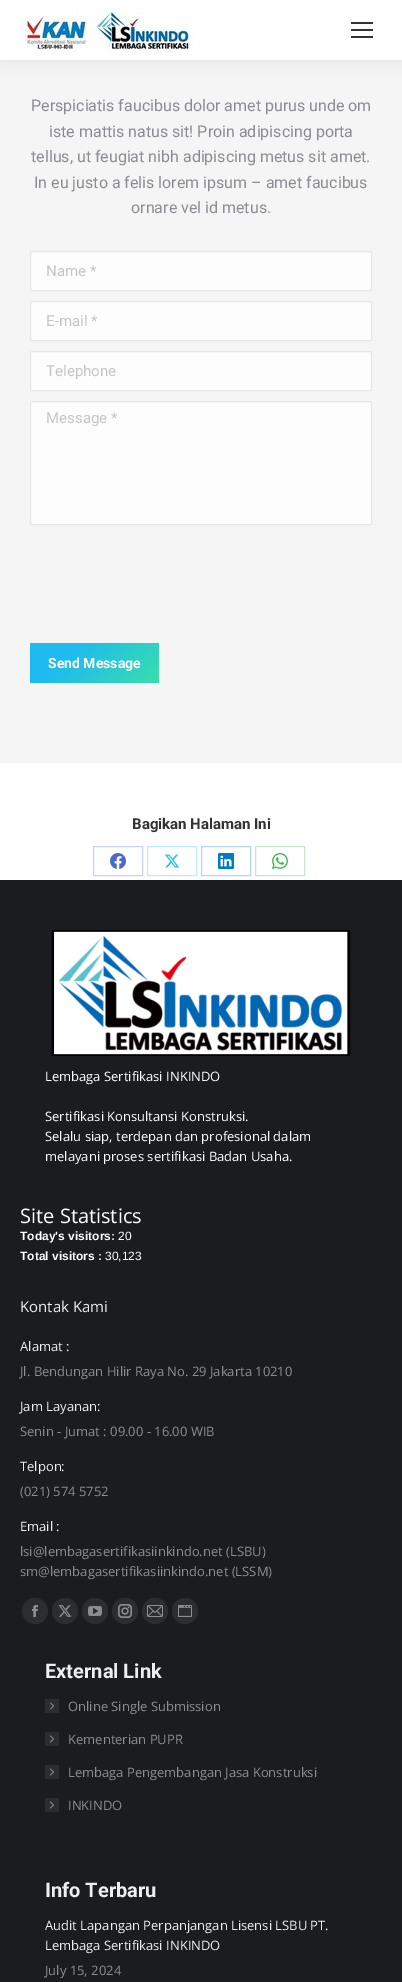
%!PS
<< /PageSize [402 1982] /PageUsesTransparency true >> setpagedevice
/rgb { 3 { 255 div 3 1 roll } repeat setrgbcolor } def
/font { [ exch dup neg 0 0 3 -1 roll 0 0 ] selectfont } def
/alpha { dup .setfillconstantalpha .setstrokeconstantalpha } def
/circle { newpath 0 360 arc closepath } def
/roundrect { 5 dict begin { /r /h /w /y /x } { exch def } forall
  x r add y moveto x w add y 2 copy h add r arct x w add y h add x 1 index r arct
  x y h add x y r arct x y 2 copy exch w add exch r arct closepath end } def
/shadow { 12 dict begin { /a /b /q /h /w /y /x } { exch def } forall gsave /was 0 def
  9 -2 -9 { dup b mul 4 div /e exch def 1 sub .425 mul 2.718 exch exp 1 add a .99 .min exch div /now exch def
    1 1 now sub 1 was sub div sub alpha /was now def
    w h .min e 2 mul add 0 gt { x e sub y e sub w e 2 mul add h e 2 mul add
      q e add b .6 mul add w h .min 2 div e add .min 0 .max roundrect fill } if } for grestore end } def
/picture { 5 dict begin { /h /w /y /x /name } { exch def } forall
  gsave x y translate w h scale
  w h 8 [w 0 0 h 0 0] name (r) file false 3 colorimage grestore end } def
0 .pushpdf14devicefilter
0 1982 translate 1 -1 scale
4 setmiterlimit
255 255 255 rgb
0 0 402 1982 rectfill
245 245 245 rgb
0 60 402 703 rectfill
0 0 0 rgb
-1 -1 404 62 0 7.5 0.07 shadow
255 255 255 rgb
0 0 402 60 rectfill
(img/1.rgb) 20 8 173 45 picture
[
  [351 22 22 2 51 51 51]
  [351 29 22 2 51 51 51]
  [351 36 22 2 51 51 51]
] { aload pop rgb rectfill } forall
253 253 253 rgb
30.5 251.5 341 39 1.5 roundrect gsave fill grestore
231 231 231 rgb
stroke
253 253 253 rgb
30.5 301.5 341 39 1.5 roundrect gsave fill grestore
231 231 231 rgb
stroke
253 253 253 rgb
30.5 351.5 341 39 1.5 roundrect gsave fill grestore
231 231 231 rgb
stroke
253 253 253 rgb
30.5 401.5 341 123 1.5 roundrect gsave fill grestore
231 231 231 rgb
stroke
gsave 30 643 129 40 1 roundrect clip newpath
<< /ShadingType 2 /ColorSpace /DeviceRGB /Coords [52 621 137 705] /Extend [true true] /Function << /FunctionType 3 /Domain [0 1] /Functions [<< /FunctionType 2 /Domain [0 1] /C0 [0.118 0.733 0.941] /C1 [0.118 0.733 0.941] /N 1 >> << /FunctionType 2 /Domain [0 1] /C0 [0.118 0.733 0.941] /C1 [0.224 0.875 0.667] /N 1 >>] /Bounds [0.3] /Encode [0 1 0 1] >> >> shfill grestore
201 210 238 rgb
93.5 846.5 49 29 rectstroke
(img/2.rgb) 110 853 16 16 picture
191 236 249 rgb
147.5 846.5 49 29 rectstroke
(img/3.rgb) 165 854 15 14 picture
179 215 238 rgb
201.5 846.5 49 29 rectstroke
(img/4.rgb) 218 853 16 16 picture
195 233 202 rgb
255.5 846.5 49 29 rectstroke
(img/5.rgb) 272 853 16 16 picture
26 28 32 rgb
0 880 402 1102 rectfill
(img/6.rgb) 51 930 300 126 picture
43 45 49 rgb
35 1611 13 circle fill
(img/7.rgb) 32 1605 6 12 picture
65 1611 13 circle fill
(img/8.rgb) 58 1605 14 12 picture
95 1611 13 circle fill
(img/9.rgb) 88 1606 14 10 picture
125 1611 13 circle fill
(img/10.rgb) 118 1604 14 14 picture
155 1611 13 circle fill
(img/11.rgb) 147 1605 16 12 picture
185 1611 13 circle fill
(img/12.rgb) 178 1605 14 12 picture
45 1699 14 14 rectfill
(img/13.rgb) 50 1702 4 8 picture
45 1732 14 14 rectfill
(img/13.rgb) 50 1735 4 8 picture
45 1765 14 14 rectfill
(img/13.rgb) 50 1768 4 8 picture
45 1798 14 14 rectfill
(img/13.rgb) 50 1801 4 8 picture
/Roboto-Regular 16 font
139 141 148 rgb
[
  [(Perspiciatis faucibus dolor amet purus unde om) 31 111]
  [(iste mattis natus sit! Proin adipiscing porta) 49 137]
  [(tellus, ut feugiat nibh adipiscing metus sit amet.) 31 162]
  [(In eu justo a felis lorem ipsum – amet faucibus) 34 188]
  [(ornare vel id metus.) 131 213]
] { aload pop moveto show } forall
/Roboto-Regular 15 font
196 197 201 rgb
[
  [(Name *) 46 276]
  [(E-mail *) 46 326]
  [(Telephone) 46 376]
  [(Message *) 46 423]
] { aload pop moveto show } forall
/Roboto-Bold 14 font
255 255 255 rgb
48 668 moveto (Send Message) show
/Roboto-Bold 15 font
51 51 51 rgb
132 829 moveto (Bagikan Halaman Ini) show
/OpenSans-Regular 13 font
255 255 255 rgb
[
  [(Lembaga Sertifikasi INKINDO) 45 1081]
  [(Sertifikasi Konsultansi Konstruksi.) 45 1121]
  [(Selalu siap, terdepan dan profesional dalam) 45 1141]
  [(melayani proses sertifikasi Badan Usaha.) 45 1161]
] { aload pop moveto show } forall
/OpenSans-Regular 20 font
20 1223 moveto (Site Statistics) show
/LiberationSans-Bold 12 font
20 1240 moveto (Today's visitors:) show
/LiberationSans-Regular 12 font
118 1240 moveto (20) show
/LiberationSans-Bold 12 font
20 1260 moveto (Total visitors :) show
/LiberationSans-Regular 12 font
105 1260 moveto (30,123) show
/OpenSans-Regular 15 font
238 238 238 rgb
20 1312 moveto (Kontak Kami) show
/OpenSans-Regular 13 font
20 1351 moveto (Alamat :) show
139 141 148 rgb
20 1376 moveto (Jl. Bendungan Hilir Raya No. 29 Jakarta 10210) show
238 238 238 rgb
20 1411 moveto (Jam Layanan:) show
139 141 148 rgb
20 1436 moveto (Senin - Jumat : 09.00 - 16.00 WIB) show
238 238 238 rgb
20 1471 moveto (Telpon:) show
139 141 148 rgb
20 1496 moveto (\(021\) 574 5752) show
238 238 238 rgb
20 1531 moveto (Email :) show
139 141 148 rgb
20 1556 moveto (lsi@lembagasertifikasiinkindo.net \(LSBU\)) show
20 1576 moveto (sm@lembagasertifikasiinkindo.net \(LSSM\)) show
/Roboto-Bold 20 font
238 238 238 rgb
45 1678 moveto (External Link) show
/OpenSans-Regular 13 font
139 141 148 rgb
[
  [(Online Single Submission) 68 1711]
  [(Kementerian PUPR) 68 1744]
  [(Lembaga Pengembangan Jasa Konstruksi) 68 1777]
  [(INKINDO) 68 1810]
] { aload pop moveto show } forall
/Roboto-Bold 20 font
238 238 238 rgb
45 1897 moveto (Info Terbaru) show
/OpenSans-Regular 13 font
45 1930 moveto (Audit Lapangan Perpanjangan Lisensi LSBU PT.) show
45 1950 moveto (Lembaga Sertifikasi INKINDO) show
139 141 148 rgb
45 1975 moveto (July 15, 2024) show
.poppdf14devicefilter showpage
